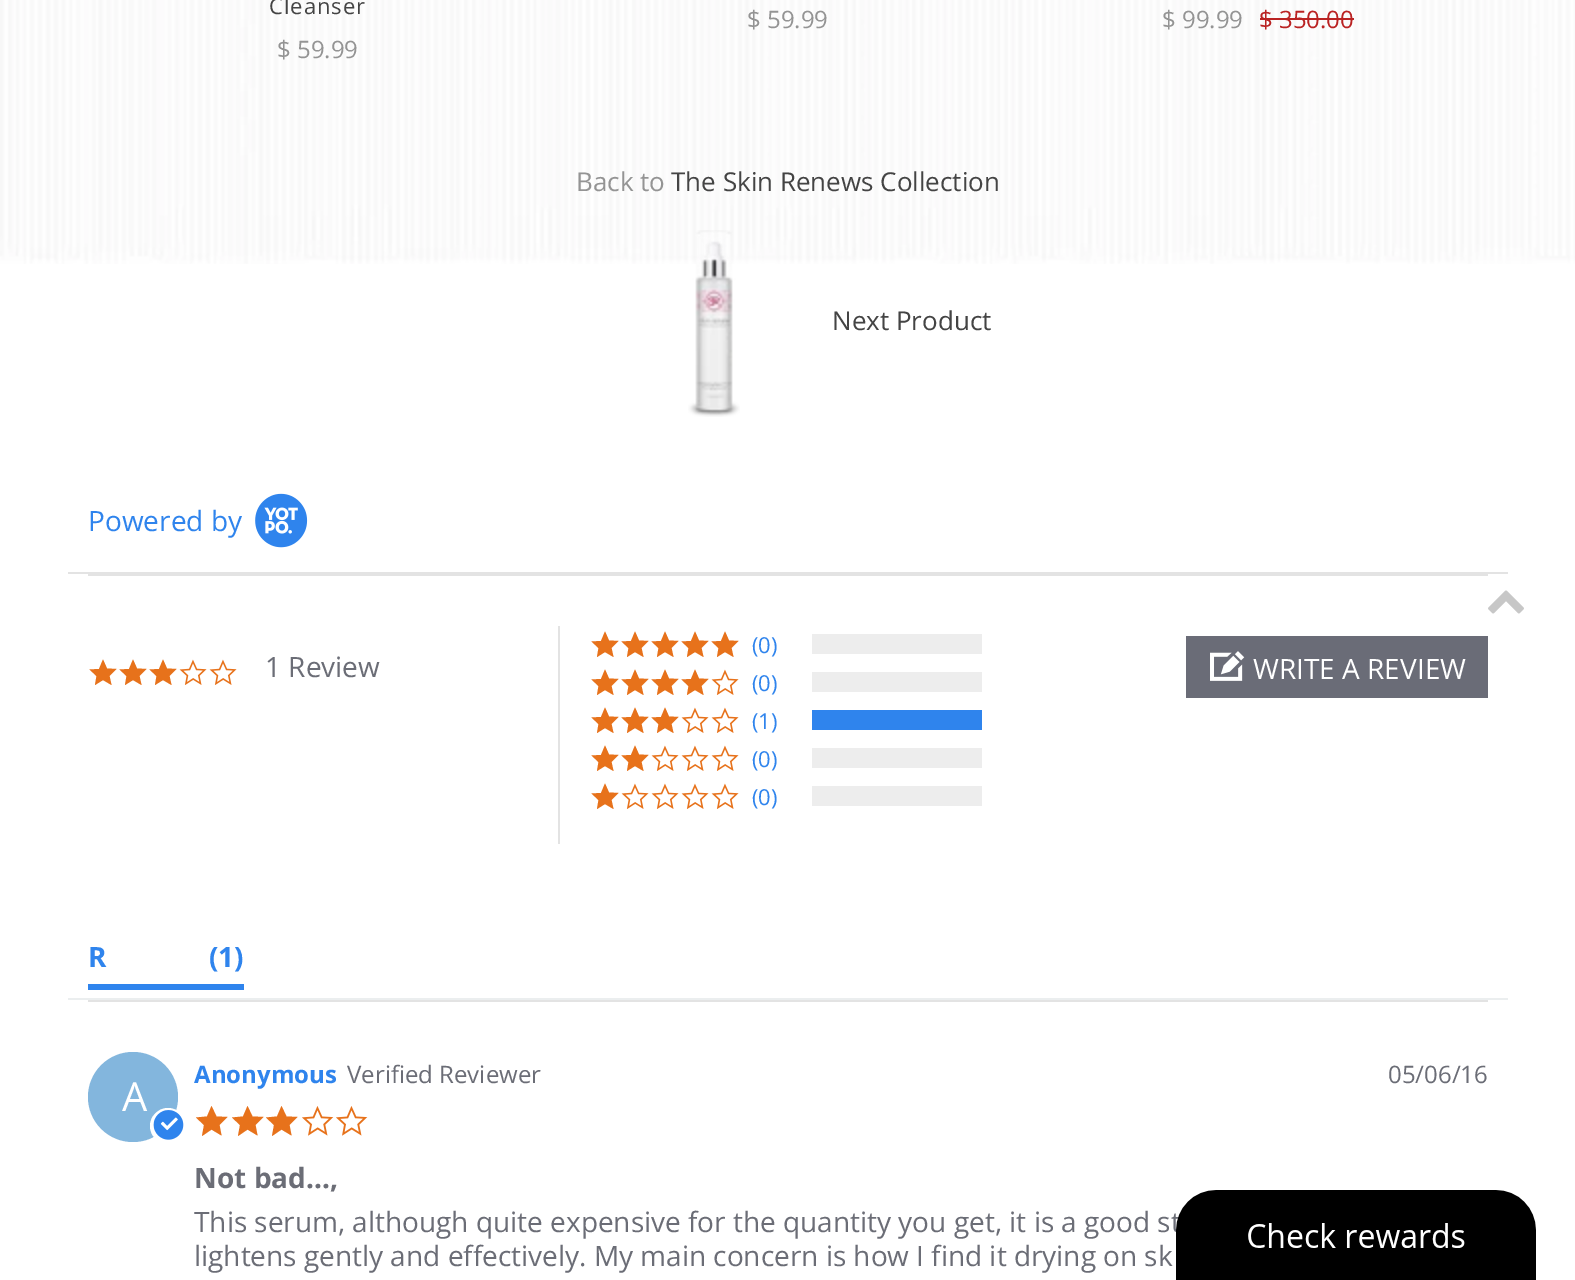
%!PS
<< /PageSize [1575 1280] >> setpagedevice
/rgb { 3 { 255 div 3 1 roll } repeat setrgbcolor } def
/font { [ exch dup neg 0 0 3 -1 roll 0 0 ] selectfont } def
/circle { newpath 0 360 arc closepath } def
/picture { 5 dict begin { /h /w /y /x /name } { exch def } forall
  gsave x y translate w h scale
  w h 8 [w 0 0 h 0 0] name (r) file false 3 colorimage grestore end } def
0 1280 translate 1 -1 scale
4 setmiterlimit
255 255 255 rgb
0 0 1575 1280 rectfill
(img/1.rgb) 0 0 1575 264 picture
186 35 35 rgb
1260 18 94 2 rectfill
(img/2.rgb) 688 230 52 187 picture
227 227 227 rgb
68 572 1440 2 rectfill
(img/3.rgb) 255 493 53 55 picture
88 574 1400 2 rectfill
231 114 27 rgb
111.5 685 moveto 103 680 lineto 95 685 lineto 96.5 676 lineto 89.5 669.5 lineto 99 669 lineto 103 659.5 lineto 107 668.5 lineto 116.5 669 lineto 109.5 676 lineto closepath 141.5 685 moveto 133 680 lineto 125 685 lineto 126.5 676 lineto 119.5 669.5 lineto 129 669 lineto 133 659.5 lineto 137 668.5 lineto 146.5 669 lineto 139.5 676 lineto closepath fill
171.5 685 moveto 163 680 lineto 155 685 lineto 156.5 676 lineto 149.5 669.5 lineto 159 669 lineto 163 659.5 lineto 167 668.5 lineto 176.5 669 lineto 169.5 676 lineto closepath fill
(img/4.rgb) 179 659 28 26 picture
(img/4.rgb) 209 659 28 26 picture
227 227 227 rgb
558 626 2 218 rectfill
231 114 27 rgb
613.5 657 moveto 605 652 lineto 597 657 lineto 598.5 648 lineto 591.5 641.5 lineto 601 641 lineto 605 631.5 lineto 609 640.5 lineto 618.5 641 lineto 611.5 648 lineto closepath 643.5 657 moveto 635 652 lineto 627 657 lineto 628.5 648 lineto 621.5 641.5 lineto 631 641 lineto 635 631.5 lineto 639 640.5 lineto 648.5 641 lineto 641.5 648 lineto closepath fill
673.5 657 moveto 665 652 lineto 657 657 lineto 658.5 648 lineto 651.5 641.5 lineto 661 641 lineto 665 631.5 lineto 669 640.5 lineto 678.5 641 lineto 671.5 648 lineto closepath 703.5 657 moveto 695 652 lineto 687 657 lineto 688.5 648 lineto 681.5 641.5 lineto 691 641 lineto 695 631.5 lineto 699 640.5 lineto 708.5 641 lineto 701.5 648 lineto closepath fill
733.5 657 moveto 725 652 lineto 717 657 lineto 718.5 648 lineto 711.5 641.5 lineto 721 641 lineto 725 631.5 lineto 729 640.5 lineto 738.5 641 lineto 731.5 648 lineto closepath fill
613.5 695 moveto 605 690 lineto 597 695 lineto 598.5 686 lineto 591.5 679.5 lineto 601 679 lineto 605 669.5 lineto 609 678.5 lineto 618.5 679 lineto 611.5 686 lineto closepath 643.5 695 moveto 635 690 lineto 627 695 lineto 628.5 686 lineto 621.5 679.5 lineto 631 679 lineto 635 669.5 lineto 639 678.5 lineto 648.5 679 lineto 641.5 686 lineto closepath fill
673.5 695 moveto 665 690 lineto 657 695 lineto 658.5 686 lineto 651.5 679.5 lineto 661 679 lineto 665 669.5 lineto 669 678.5 lineto 678.5 679 lineto 671.5 686 lineto closepath 703.5 695 moveto 695 690 lineto 687 695 lineto 688.5 686 lineto 681.5 679.5 lineto 691 679 lineto 695 669.5 lineto 699 678.5 lineto 708.5 679 lineto 701.5 686 lineto closepath fill
(img/4.rgb) 711 669 28 26 picture
613.5 733 moveto 605 728 lineto 597 733 lineto 598.5 724 lineto 591.5 717.5 lineto 601 717 lineto 605 707.5 lineto 609 716.5 lineto 618.5 717 lineto 611.5 724 lineto closepath 643.5 733 moveto 635 728 lineto 627 733 lineto 628.5 724 lineto 621.5 717.5 lineto 631 717 lineto 635 707.5 lineto 639 716.5 lineto 648.5 717 lineto 641.5 724 lineto closepath fill
673.5 733 moveto 665 728 lineto 657 733 lineto 658.5 724 lineto 651.5 717.5 lineto 661 717 lineto 665 707.5 lineto 669 716.5 lineto 678.5 717 lineto 671.5 724 lineto closepath fill
(img/4.rgb) 681 707 28 26 picture
(img/4.rgb) 711 707 28 26 picture
613.5 771 moveto 605 766 lineto 597 771 lineto 598.5 762 lineto 591.5 755.5 lineto 601 755 lineto 605 745.5 lineto 609 754.5 lineto 618.5 755 lineto 611.5 762 lineto closepath 643.5 771 moveto 635 766 lineto 627 771 lineto 628.5 762 lineto 621.5 755.5 lineto 631 755 lineto 635 745.5 lineto 639 754.5 lineto 648.5 755 lineto 641.5 762 lineto closepath fill
(img/4.rgb) 651 745 28 26 picture
(img/4.rgb) 681 745 28 26 picture
(img/4.rgb) 711 745 28 26 picture
613.5 809 moveto 605 804 lineto 597 809 lineto 598.5 800 lineto 591.5 793.5 lineto 601 793 lineto 605 783.5 lineto 609 792.5 lineto 618.5 793 lineto 611.5 800 lineto closepath fill
(img/4.rgb) 621 783 28 26 picture
(img/4.rgb) 651 783 28 26 picture
(img/4.rgb) 681 783 28 26 picture
(img/4.rgb) 711 783 28 26 picture
[
  [812 634 170 20 237 237 237]
  [812 672 170 20 237 237 237]
  [812 710 170 20 47 132 237]
  [812 748 170 20 237 237 237]
  [812 786 170 20 237 237 237]
  [1186 636 302 62 106 108 119]
] { aload pop rgb rectfill } forall
(img/5.rgb) 1210 651 35 30 picture
[
  [68 998 1440 2 235 238 239]
  [88 984 156 6 47 132 237]
  [88 1000 1400 2 227 227 227]
] { aload pop rgb rectfill } forall
231 114 27 rgb
221.5 1135.5 moveto 211.5 1129.5 lineto 202 1136 lineto 204 1125 lineto 196 1117.5 lineto 207 1116.5 lineto 211.5 1106 lineto 216.5 1116.5 lineto 227.5 1117 lineto 219.5 1125 lineto closepath fill
257.5 1135.5 moveto 247.5 1129.5 lineto 238 1136 lineto 240 1125 lineto 232 1117.5 lineto 243 1116.5 lineto 247.5 1106 lineto 252.5 1116.5 lineto 263.5 1117 lineto 255.5 1125 lineto closepath fill
291.5 1135.5 moveto 281.5 1129.5 lineto 272 1136 lineto 274 1125 lineto 266 1117.5 lineto 277 1116.5 lineto 281.5 1106 lineto 286.5 1116.5 lineto 297.5 1117 lineto 289.5 1125 lineto closepath fill
(img/6.rgb) 302 1106 32 30 picture
(img/6.rgb) 336 1106 32 30 picture
131 182 221 rgb
133 1097 45 circle fill
255 255 255 rgb
168 1126 18 circle fill
(img/7.rgb) 153 1110 31 30 picture
(img/8.rgb) 1488 590 36 24 picture
/OpenSans-Regular 22 font
68 68 68 rgb
269 14 moveto 1 0 (Cleanser) ashow
/OpenSans-Regular 24 font
148 148 148 rgb
[
  [($ 59.99) 277 58]
  [($ 59.99) 747 28]
  [($ 99.99) 1162 28]
] { aload pop moveto show } forall
186 35 35 rgb
1259 28 moveto ($ 350.00) show
/OpenSans-Regular 26 font
148 148 148 rgb
576 191 moveto (Back to) show
68 68 68 rgb
671 191 moveto (The Skin Renews Collection) show
832 330 moveto (Next Product) show
/OpenSans-Regular 28 font
47 132 237 rgb
88 531 moveto (Powered by) show
107 109 118 rgb
265 677 moveto (1 Review) show
/OpenSans-Regular 22 font
47 132 237 rgb
[
  [(\(0\)) 752 653]
  [(\(0\)) 752 691]
  [(\(1\)) 752 729]
  [(\(0\)) 752 767]
  [(\(0\)) 752 805]
] { aload pop moveto show } forall
/OpenSans-Regular 28 font
255 255 255 rgb
1253 679 moveto (WRITE A REVIEW) show
/NotoSans-Bold 28 font
47 132 237 rgb
88 967 moveto (R) show
/OpenSans-Bold 28 font
209 967 moveto (\(1\)) show
/OpenSans-Bold 24 font
194 1083 moveto (Anonymous) show
/OpenSans-Regular 24 font
107 109 118 rgb
347 1083 moveto (Verified Reviewer) show
1388 1083 moveto (05/06/16) show
/OpenSans-Regular 40 font
255 255 255 rgb
122 1111 moveto (A) show
/OpenSans-Bold 28 font
107 109 118 rgb
194 1188 moveto (Not bad...,) show
/OpenSans-Regular 28 font
194 1232 moveto (This serum, although quite expensive for the quantity you get, it is a good st) show
194 1266 moveto (lightens gently and effectively. My main concern is how I find it drying on sk) show
(img/9.rgb) 1176 1190 360 90 picture
showpage
